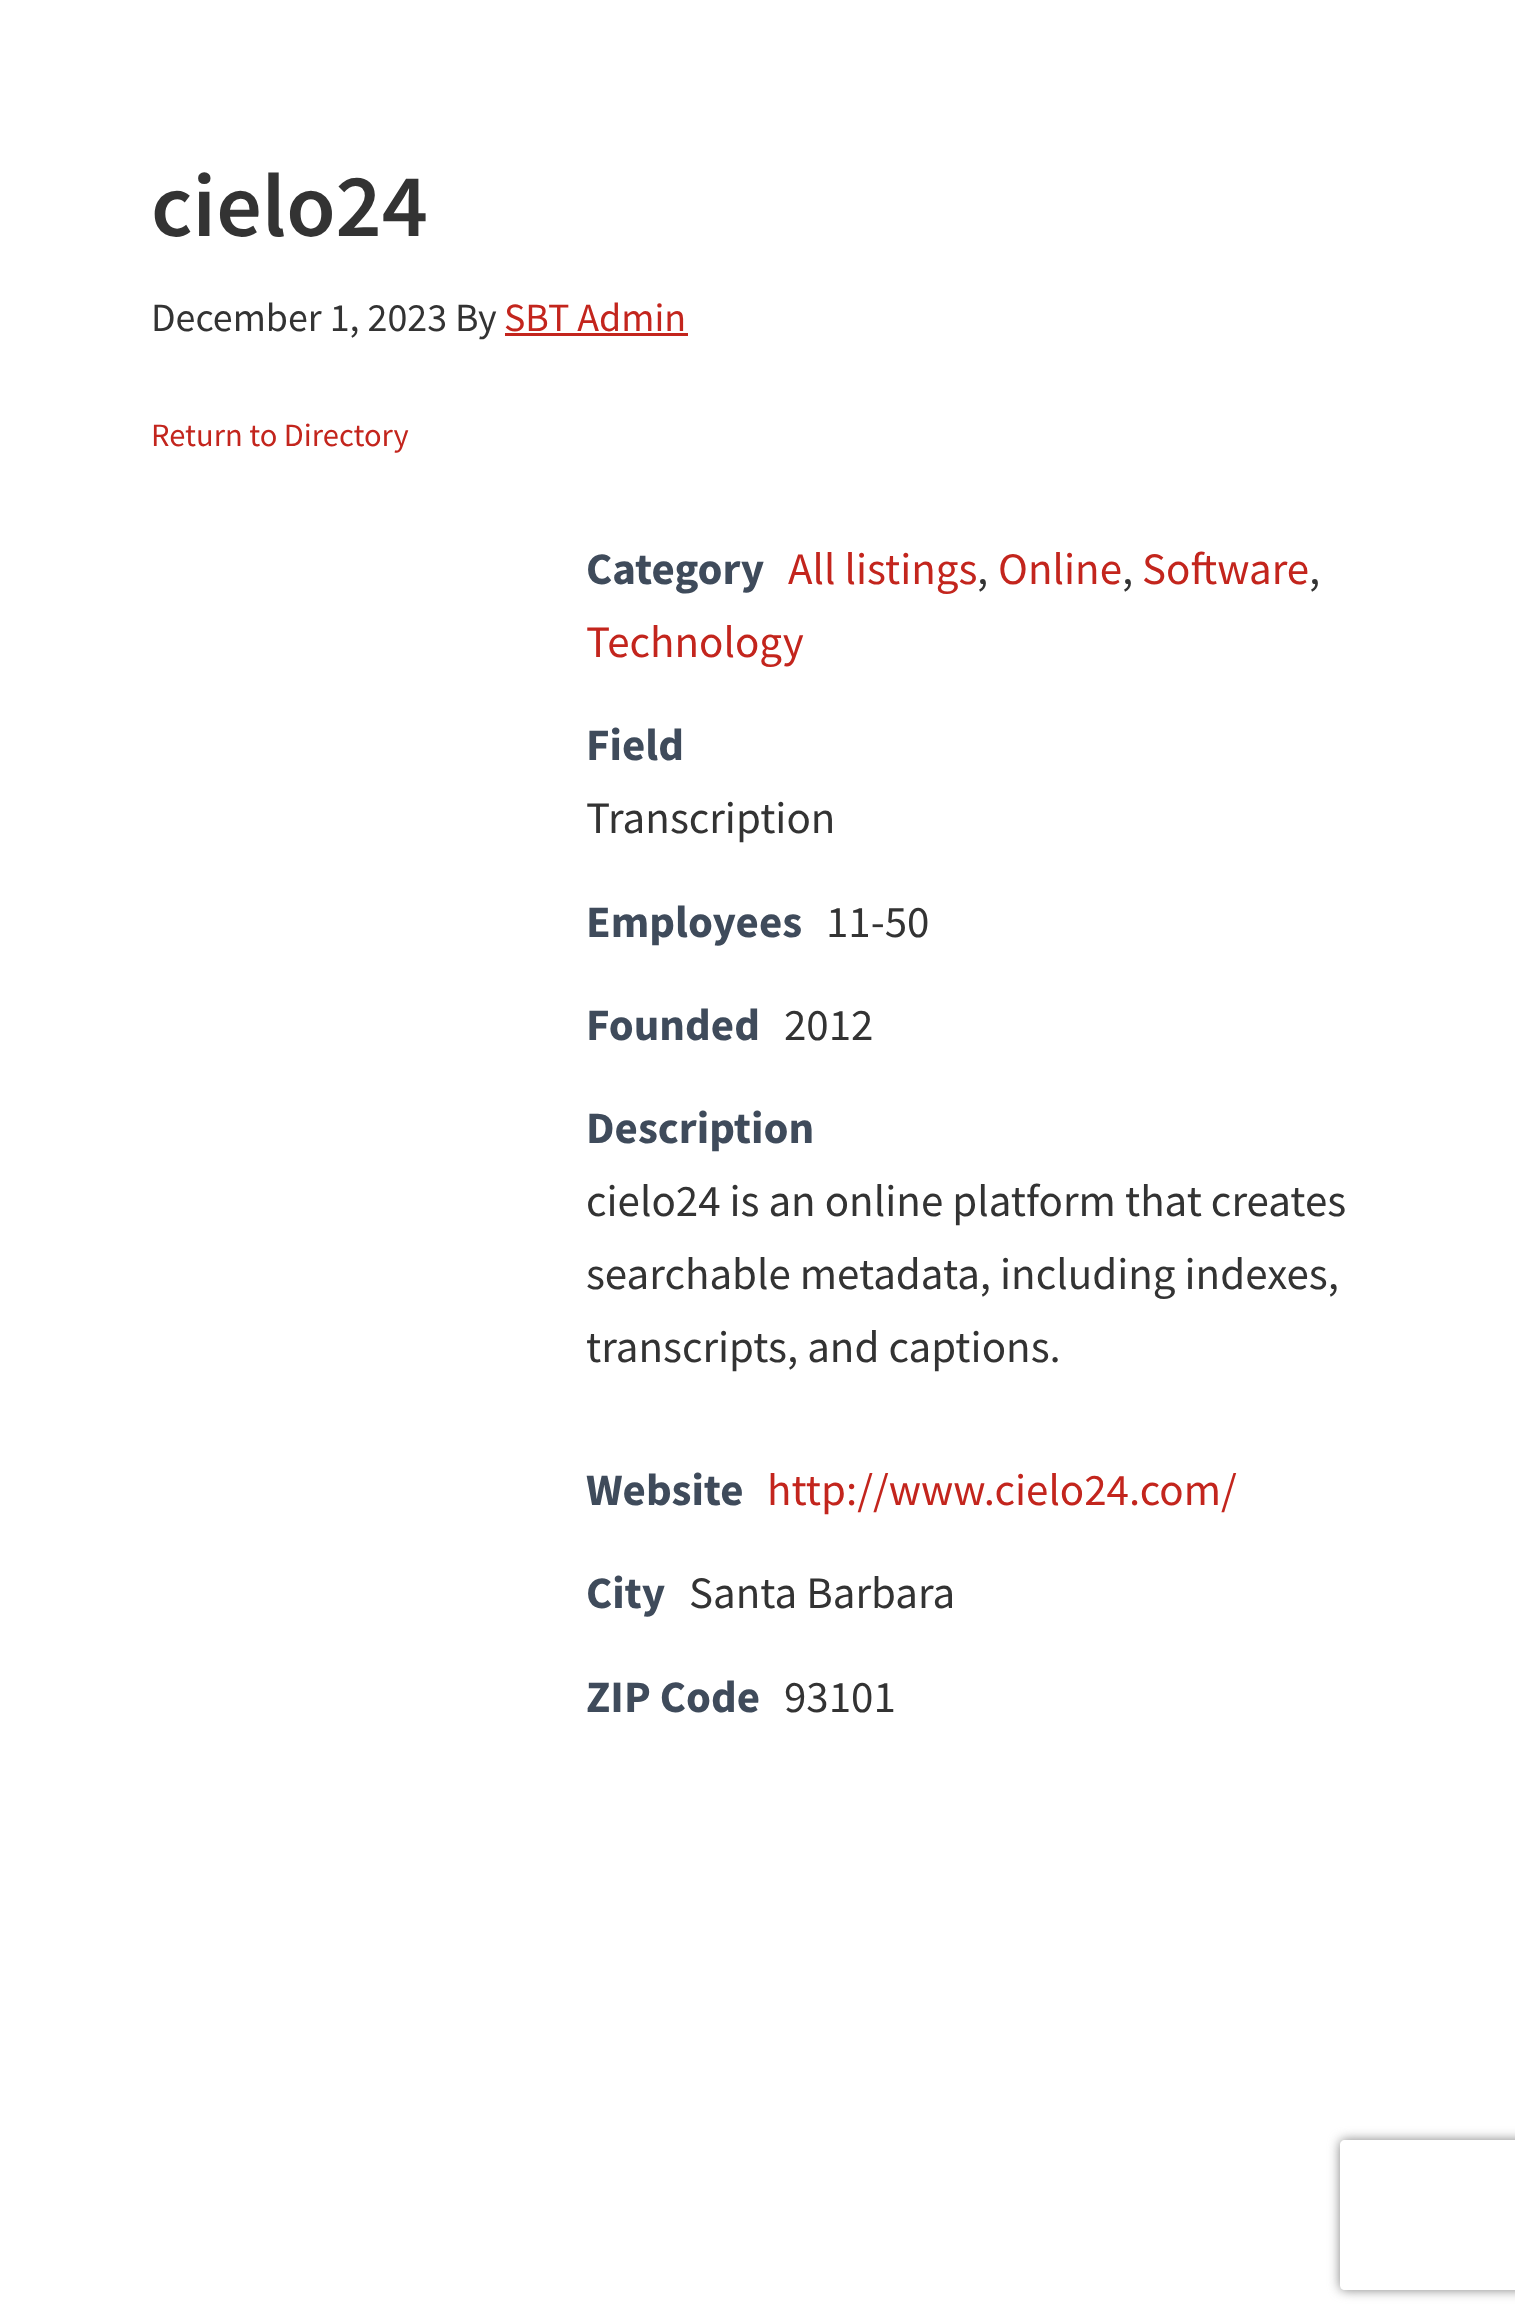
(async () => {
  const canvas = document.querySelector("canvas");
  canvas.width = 1515;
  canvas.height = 2324;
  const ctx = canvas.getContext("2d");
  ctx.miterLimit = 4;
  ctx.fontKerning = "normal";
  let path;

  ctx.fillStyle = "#ffffff";
  ctx.fillRect(0, 0, 1515, 2324);
  ctx.fillStyle = "#c3251d";
  ctx.fillRect(505, 333, 183, 3);
  ctx.save();
  path = new Path2D("M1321 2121H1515V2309H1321ZM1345 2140H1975C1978 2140 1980 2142 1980 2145V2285C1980 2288 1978 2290 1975 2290H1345C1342 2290 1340 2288 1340 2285V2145C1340 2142 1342 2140 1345 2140Z");
  ctx.clip(path, "evenodd");
  ctx.fillStyle = "#808080";
  ctx.filter = "blur(6px)";
  ctx.beginPath();
  ctx.roundRect(1340, 2140, 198, 150, 5);
  ctx.fill();
  ctx.filter = "none";
  ctx.restore();
  ctx.font = "600 90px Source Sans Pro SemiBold";
  ctx.fillStyle = "#333333";
  ctx.fillText("cielo24", 151, 236);
  ctx.font = "40px Source Sans Pro";
  ctx.fillText("December 1, 2023 By", 151, 331);
  ctx.fillStyle = "#c3251d";
  ctx.fillText("SBT Admin", 504, 331);
  ctx.font = "32.5px Source Sans Pro";
  ctx.fillText("Return to Directory", 151, 446);
  ctx.font = "bold 45px Source Sans Pro";
  ctx.fillStyle = "#3f4b5b";
  ctx.fillText("Category", 586, 584);
  ctx.font = "45px Source Sans Pro";
  ctx.fillStyle = "#c3251d";
  ctx.fillText("All listings", 788, 584);
  ctx.fillStyle = "#333333";
  ctx.fillText(",", 977, 584);
  ctx.fillStyle = "#c3251d";
  ctx.fillText("Online", 998, 584);
  ctx.fillStyle = "#333333";
  ctx.fillText(",", 1122, 584);
  ctx.fillStyle = "#c3251d";
  ctx.fillText("Software", 1142, 584);
  ctx.fillStyle = "#333333";
  ctx.fillText(",", 1309, 584);
  ctx.fillStyle = "#c3251d";
  ctx.fillText("Technology", 586, 657);
  ctx.font = "bold 45px Source Sans Pro";
  ctx.fillStyle = "#3f4b5b";
  ctx.fillText("Field", 586, 760);
  ctx.font = "45px Source Sans Pro";
  ctx.fillStyle = "#333333";
  ctx.fillText("Transcription", 586, 833);
  ctx.font = "bold 45px Source Sans Pro";
  ctx.fillStyle = "#3f4b5b";
  ctx.fillText("Employees", 586, 937);
  ctx.font = "45px Source Sans Pro";
  ctx.fillStyle = "#333333";
  ctx.fillText("11-50", 826, 937);
  ctx.font = "bold 45px Source Sans Pro";
  ctx.fillStyle = "#3f4b5b";
  ctx.fillText("Founded", 586, 1040);
  ctx.font = "45px Source Sans Pro";
  ctx.fillStyle = "#333333";
  ctx.fillText("2012", 784, 1040);
  ctx.font = "bold 45px Source Sans Pro";
  ctx.fillStyle = "#3f4b5b";
  ctx.fillText("Description", 586, 1143);
  ctx.font = "45px Source Sans Pro";
  ctx.fillStyle = "#333333";
  for (const [text, x, y] of [
    ["cielo24 is an online platform that creates", 586, 1216],
    ["searchable metadata, including indexes,", 586, 1289],
    ["transcripts, and captions.", 586, 1362],
  ]) {
    ctx.fillText(text, x, y);
  }
  ctx.font = "bold 45px Source Sans Pro";
  ctx.fillStyle = "#3f4b5b";
  ctx.fillText("Website", 586, 1505);
  ctx.font = "45px Source Sans Pro";
  ctx.fillStyle = "#c3251d";
  ctx.fillText("http://www.cielo24.com/", 767, 1505);
  ctx.font = "bold 45px Source Sans Pro";
  ctx.fillStyle = "#3f4b5b";
  ctx.fillText("City", 586, 1608);
  ctx.font = "45px Source Sans Pro";
  ctx.fillStyle = "#333333";
  ctx.fillText("Santa Barbara", 689, 1608);
  ctx.font = "bold 45px Source Sans Pro";
  ctx.fillStyle = "#3f4b5b";
  ctx.fillText("ZIP Code", 586, 1712);
  ctx.font = "45px Source Sans Pro";
  ctx.fillStyle = "#333333";
  ctx.fillText("93101", 784, 1712);
})();
